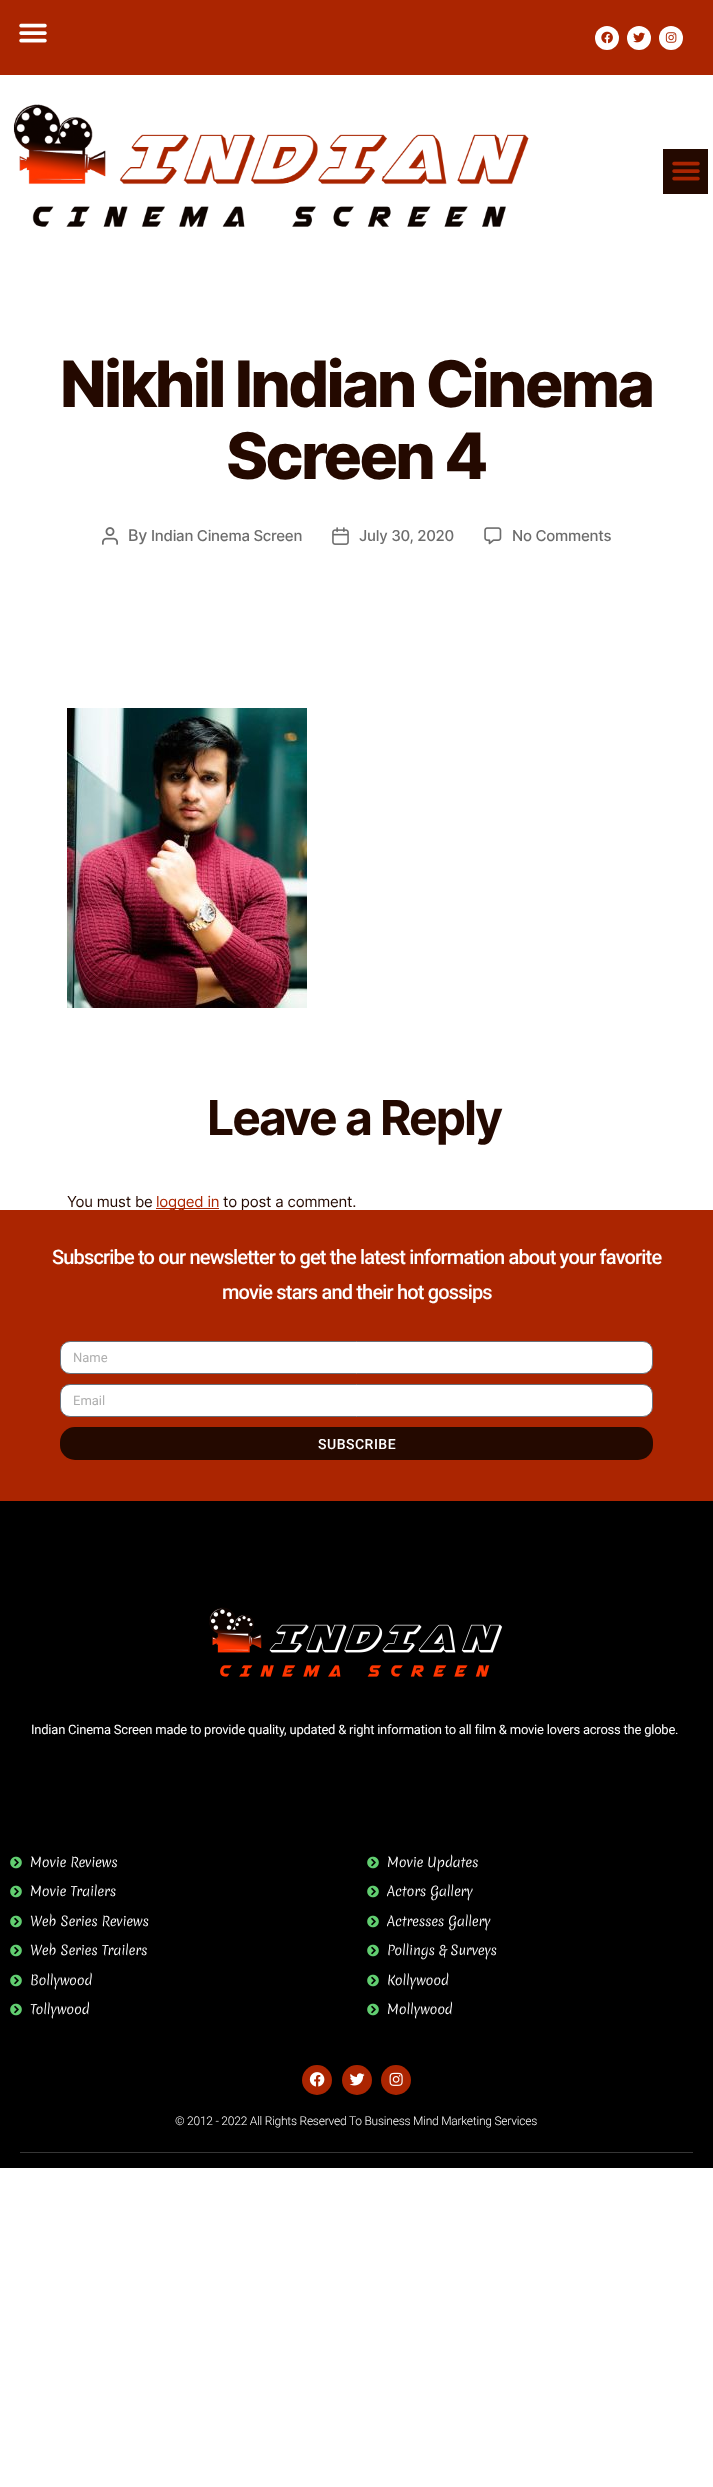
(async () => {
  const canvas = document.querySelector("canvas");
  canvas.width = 713;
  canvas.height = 2487;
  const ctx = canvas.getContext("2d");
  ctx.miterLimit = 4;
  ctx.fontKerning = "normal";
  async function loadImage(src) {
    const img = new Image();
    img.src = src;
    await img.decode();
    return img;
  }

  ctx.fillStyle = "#ffffff";
  ctx.fillRect(0, 0, 713, 2487);
  ctx.fillStyle = "#ab2501";
  ctx.fillRect(0, 0, 713, 75);
  ctx.drawImage(await loadImage("img/1.png"), 19, 23, 28, 20);
  ctx.fillStyle = "#ffffff";
  ctx.beginPath();
  ctx.arc(607, 38, 12, 0, Math.PI * 2);
  ctx.fill();
  ctx.drawImage(await loadImage("img/2.png"), 601, 31, 12, 13);
  ctx.beginPath();
  ctx.arc(639, 38, 12, 0, Math.PI * 2);
  ctx.fill();
  ctx.drawImage(await loadImage("img/3.png"), 633, 32, 12, 11);
  ctx.beginPath();
  ctx.arc(671, 38, 12, 0, Math.PI * 2);
  ctx.fill();
  ctx.drawImage(await loadImage("img/4.png"), 665, 32, 12, 11);
  ctx.drawImage(await loadImage("img/5.png"), 13, 104, 516, 123);
  ctx.fillStyle = "#240900";
  ctx.fillRect(663, 149, 45, 45);
  ctx.drawImage(await loadImage("img/6.png"), 672, 161, 28, 20);
  ctx.drawImage(await loadImage("img/7.png"), 102, 527, 16, 18);
  ctx.drawImage(await loadImage("img/8.png"), 332, 527, 17, 18);
  ctx.drawImage(await loadImage("img/9.png"), 484, 527, 18, 18);
  ctx.drawImage(await loadImage("img/10.png"), 67, 708, 240, 300);
  ctx.fillStyle = "#ab2501";
  ctx.fillRect(156, 1208, 63, 1);
  ctx.fillRect(0, 1210, 713, 291);
  ctx.fillStyle = "#ffffff";
  ctx.beginPath();
  ctx.roundRect(60.5, 1341.5, 592, 32, 9.5);
  ctx.fill();
  ctx.strokeStyle = "#69727d";
  ctx.stroke();
  ctx.beginPath();
  ctx.roundRect(60.5, 1384.5, 592, 32, 9.5);
  ctx.fill();
  ctx.stroke();
  ctx.fillStyle = "#240900";
  ctx.beginPath();
  ctx.roundRect(60, 1427, 593, 33, 15);
  ctx.fill();
  ctx.fillStyle = "#000000";
  ctx.fillRect(0, 1501, 713, 667);
  ctx.drawImage(await loadImage("img/11.png"), 209, 1607, 294, 70);
  ctx.drawImage(await loadImage("img/12.png"), 10, 1856, 12, 13);
  ctx.drawImage(await loadImage("img/12.png"), 10, 1885, 12, 13);
  ctx.drawImage(await loadImage("img/12.png"), 10, 1915, 12, 13);
  ctx.drawImage(await loadImage("img/12.png"), 10, 1944, 12, 13);
  ctx.drawImage(await loadImage("img/12.png"), 10, 1974, 12, 13);
  ctx.drawImage(await loadImage("img/12.png"), 10, 2003, 12, 13);
  ctx.drawImage(await loadImage("img/12.png"), 367, 1856, 12, 13);
  ctx.drawImage(await loadImage("img/12.png"), 367, 1885, 12, 13);
  ctx.drawImage(await loadImage("img/12.png"), 367, 1915, 12, 13);
  ctx.drawImage(await loadImage("img/12.png"), 367, 1944, 12, 13);
  ctx.drawImage(await loadImage("img/12.png"), 367, 1974, 12, 13);
  ctx.drawImage(await loadImage("img/12.png"), 367, 2003, 12, 13);
  ctx.fillStyle = "#ab2501";
  ctx.beginPath();
  ctx.arc(317, 2080, 15, 0, Math.PI * 2);
  ctx.fill();
  ctx.drawImage(await loadImage("img/13.png"), 309, 2072, 16, 15);
  ctx.beginPath();
  ctx.arc(357, 2080, 15, 0, Math.PI * 2);
  ctx.fill();
  ctx.drawImage(await loadImage("img/14.png"), 349, 2073, 16, 13);
  ctx.beginPath();
  ctx.arc(396, 2080, 15, 0, Math.PI * 2);
  ctx.fill();
  ctx.drawImage(await loadImage("img/15.png"), 389, 2072, 14, 14);
  ctx.fillStyle = "#363636";
  ctx.fillRect(20, 2152, 673, 1);
  ctx.letterSpacing = "-2.7px";
  ctx.font = "800 64px Inter";
  ctx.fillStyle = "#240900";
  ctx.fillText("Nikhil Indian Cinema", 60, 407);
  ctx.fillText("Screen 4", 226, 479);
  ctx.letterSpacing = "-0.25px";
  ctx.font = "500 16px Inter";
  ctx.fillStyle = "#6d6d6d";
  ctx.fillText("By", 128, 541);
  ctx.font = "500 15px Inter";
  for (const [text, x, y] of [
    ["Indian Cinema Screen", 151, 541],
    ["July 30, 2020", 359, 541],
    ["No Comments", 512, 541],
  ]) {
    ctx.fillText(text, x, y);
  }
  ctx.letterSpacing = "-2px";
  ctx.font = "bold 48px Inter";
  ctx.fillStyle = "#240900";
  ctx.fillText("Leave a Reply", 207, 1135);
  ctx.letterSpacing = "-0.23px";
  ctx.font = "15px Inter";
  ctx.fillText("You must be", 67, 1207);
  ctx.fillStyle = "#ab2501";
  ctx.fillText("logged in", 156, 1207);
  ctx.fillStyle = "#240900";
  ctx.fillText("to post a comment.", 223, 1207);
  ctx.letterSpacing = "-0.83px";
  ctx.font = "500 20px Roboto";
  ctx.fillStyle = "#ffffff";
  ctx.fillText("Subscribe to our newsletter to get the latest information about your favorite", 52, 1264);
  ctx.fillText("movie stars and their hot gossips", 222, 1299);
  ctx.letterSpacing = "0px";
  ctx.font = "13px Roboto";
  ctx.fillStyle = "#afafaf";
  ctx.fillText("Name", 73, 1362);
  ctx.fillText("Email", 73, 1405);
  ctx.letterSpacing = "0.5px";
  ctx.font = "500 14px Roboto";
  ctx.fillStyle = "#ffffff";
  ctx.fillText("SUBSCRIBE", 318, 1449);
  ctx.letterSpacing = "-0.23px";
  ctx.font = "13px Roboto";
  ctx.fillText("Indian Cinema Screen made to provide quality, updated & right information to all film & movie lovers across the globe.", 31, 1734);
  ctx.font = "300 13px Merienda";
  for (const [text, x, y] of [
    ["Movie Reviews", 30, 1867],
    ["Movie Trailers", 30, 1896],
    ["Web Series Reviews", 30, 1926],
    ["Web Series Trailers", 30, 1955],
    ["Bollywood", 30, 1985],
    ["Tollywood", 30, 2014],
    ["Movie Updates", 387, 1867],
    ["Actors Gallery", 387, 1896],
    ["Actresses Gallery", 387, 1926],
    ["Pollings & Surveys", 387, 1955],
    ["Kollywood", 387, 1985],
    ["Mollywood", 387, 2014],
  ]) {
    ctx.fillText(text, x, y);
  }
  ctx.font = "300 12px Roboto";
  ctx.fillText("© 2012 - 2022 All Rights Reserved To Business Mind Marketing Services", 175, 2125);
})();
